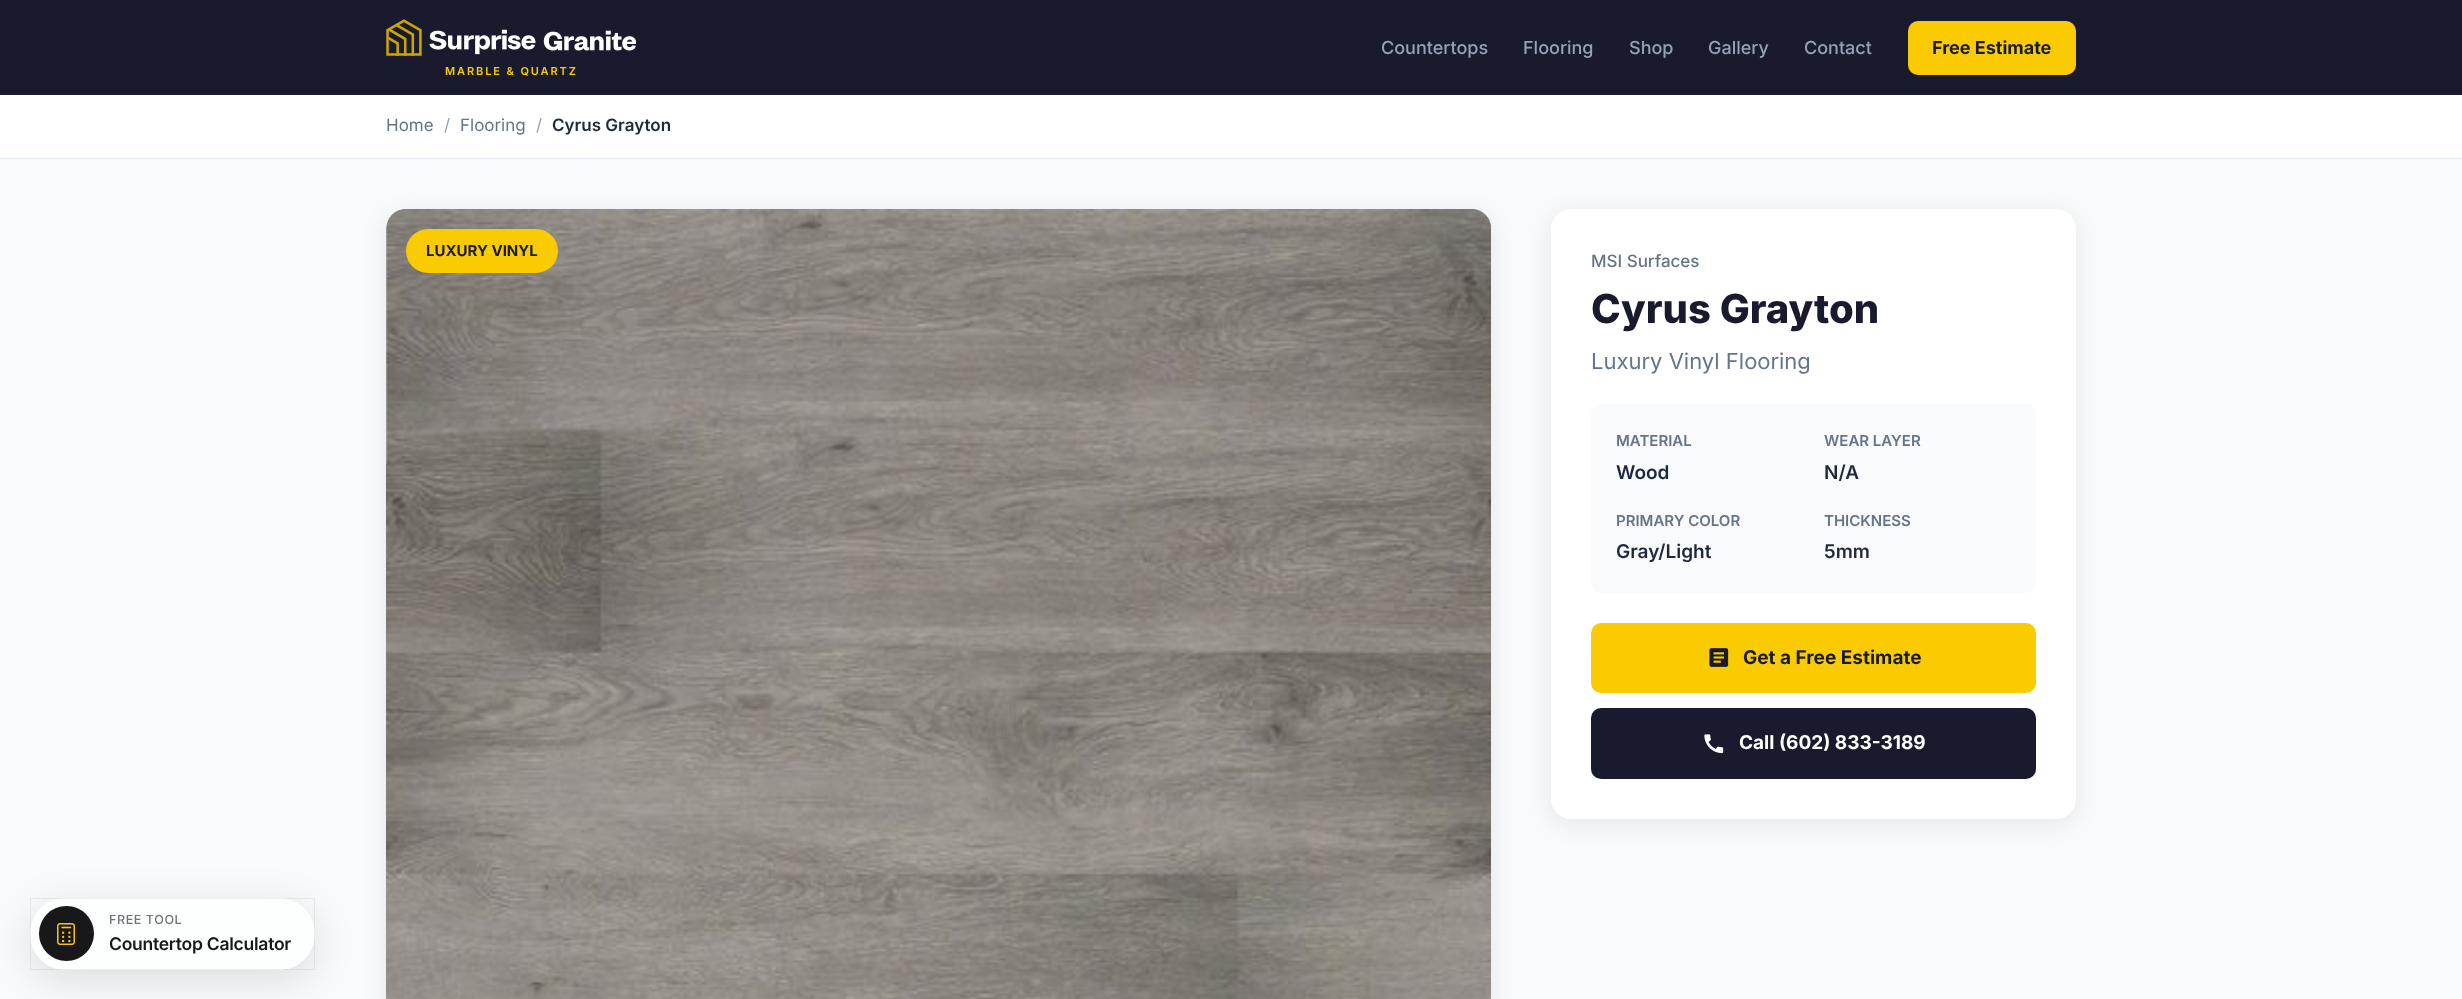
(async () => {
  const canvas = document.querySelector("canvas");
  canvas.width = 2462;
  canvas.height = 999;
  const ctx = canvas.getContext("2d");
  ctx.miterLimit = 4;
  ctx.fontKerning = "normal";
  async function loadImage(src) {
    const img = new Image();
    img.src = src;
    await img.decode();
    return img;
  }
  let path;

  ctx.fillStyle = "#f8fafc";
  ctx.fillRect(0, 0, 2462, 999);
  ctx.fillStyle = "#1a1a2e";
  ctx.fillRect(0, 0, 2462, 95);
  ctx.fillStyle = "#f9cb00";
  ctx.beginPath();
  ctx.roundRect(1908, 21, 168, 54, 10);
  ctx.fill();
  ctx.drawImage(await loadImage("img/1.png"), 386, 19, 250, 37);
  ctx.fillStyle = "#ffffff";
  ctx.fillRect(0, 95, 2462, 63);
  ctx.fillStyle = "#e2e8f0";
  ctx.fillRect(0, 158, 2462, 1);
  ctx.fillStyle = "rgba(0, 0, 0, 0.08)";
  ctx.filter = "blur(12.5px)";
  ctx.beginPath();
  ctx.roundRect(386, 214, 1105, 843, 20);
  ctx.fill();
  ctx.filter = "none";
  ctx.fillStyle = "#ffffff";
  ctx.beginPath();
  ctx.roundRect(386, 209, 1105, 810, 20);
  ctx.fill();
  ctx.drawImage(await loadImage("img/2.png"), 386, 209, 1105, 790);
  ctx.fillStyle = "#f9cb00";
  ctx.beginPath();
  ctx.roundRect(406, 229, 152, 44, 22);
  ctx.fill();
  ctx.fillStyle = "rgba(0, 0, 0, 0.08)";
  ctx.filter = "blur(12.5px)";
  ctx.beginPath();
  ctx.roundRect(1551, 214, 525, 610, 20);
  ctx.fill();
  ctx.filter = "none";
  ctx.fillStyle = "#ffffff";
  ctx.beginPath();
  ctx.roundRect(1551, 209, 525, 610, 20);
  ctx.fill();
  ctx.fillStyle = "#f8fafc";
  ctx.beginPath();
  ctx.roundRect(1591, 404, 445, 189, 10);
  ctx.fill();
  ctx.fillStyle = "#f9cb00";
  ctx.beginPath();
  ctx.roundRect(1591, 623, 445, 70, 10);
  ctx.fill();
  ctx.drawImage(await loadImage("img/3.png"), 1709, 648, 20, 19);
  ctx.fillStyle = "#1a1a2e";
  ctx.beginPath();
  ctx.roundRect(1591, 708, 445, 71, 10);
  ctx.fill();
  ctx.drawImage(await loadImage("img/4.png"), 1704, 734, 20, 20);
  ctx.save();
  path = new Path2D("M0 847H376V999H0ZM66 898H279C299 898 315 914 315 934C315 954 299 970 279 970H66C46 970 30 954 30 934C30 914 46 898 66 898Z");
  ctx.clip(path, "evenodd");
  ctx.fillStyle = "rgba(0, 0, 0, 0.12)";
  ctx.filter = "blur(20px)";
  ctx.beginPath();
  ctx.roundRect(30, 908, 285, 72, 36);
  ctx.fill();
  ctx.filter = "none";
  ctx.restore();
  ctx.fillStyle = "rgba(255, 255, 255, 0.72)";
  ctx.beginPath();
  ctx.roundRect(30, 898, 285, 72, 36);
  ctx.fill();
  ctx.strokeStyle = "rgba(0, 0, 0, 0.06)";
  ctx.strokeRect(30.5, 898.5, 284, 71);
  ctx.fillStyle = "#18181b";
  ctx.beginPath();
  ctx.arc(66.5, 933.5, 27.5, 0, Math.PI * 2);
  ctx.fill();
  ctx.drawImage(await loadImage("img/5.png"), 57, 923, 18, 22);
  ctx.font = "500 18px Inter";
  ctx.fillStyle = "#94a3b8";
  for (const [text, x, y] of [
    ["Countertops", 1381, 54],
    ["Flooring", 1523, 54],
    ["Shop", 1629, 54],
    ["Gallery", 1708, 54],
    ["Contact", 1804, 54],
  ]) {
    ctx.fillText(text, x, y);
  }
  ctx.font = "bold 18px Inter";
  ctx.fillStyle = "#1a1a2e";
  ctx.fillText("Free Estimate", 1932, 54);
  ctx.letterSpacing = "1.9px";
  ctx.font = "600 11px Inter";
  ctx.fillStyle = "#f9cb00";
  ctx.fillText("MARBLE & QUARTZ", 445, 75);
  ctx.letterSpacing = "0px";
  ctx.font = "17px Inter";
  ctx.fillStyle = "#64748b";
  ctx.fillText("Home", 386, 131);
  ctx.fillStyle = "#94a3b8";
  ctx.fillText("/", 444, 131);
  ctx.fillStyle = "#64748b";
  ctx.fillText("Flooring", 460, 131);
  ctx.fillStyle = "#94a3b8";
  ctx.fillText("/", 536, 131);
  ctx.font = "600 17px Inter";
  ctx.fillStyle = "#1e293b";
  ctx.fillText("Cyrus Grayton", 552, 131);
  ctx.font = "bold 15px Inter";
  ctx.fillStyle = "#1a1a2e";
  ctx.fillText("LUXURY VINYL", 426, 256);
  ctx.font = "500 17px Inter";
  ctx.fillStyle = "#64748b";
  ctx.fillText("MSI Surfaces", 1591, 267);
  ctx.font = "800 40px Inter";
  ctx.fillStyle = "#1a1a2e";
  ctx.fillText("Cyrus Grayton", 1591, 323);
  ctx.font = "22px Inter";
  ctx.fillStyle = "#64748b";
  ctx.fillText("Luxury Vinyl Flooring", 1591, 369);
  ctx.font = "600 15px Inter";
  ctx.fillText("MATERIAL", 1616, 446);
  ctx.font = "600 19px Inter";
  ctx.fillStyle = "#1e293b";
  ctx.fillText("Wood", 1616, 479);
  ctx.font = "600 15px Inter";
  ctx.fillStyle = "#64748b";
  ctx.fillText("WEAR LAYER", 1824, 446);
  ctx.font = "600 19px Inter";
  ctx.fillStyle = "#1e293b";
  ctx.fillText("N/A", 1824, 479);
  ctx.font = "600 15px Inter";
  ctx.fillStyle = "#64748b";
  ctx.fillText("PRIMARY COLOR", 1616, 526);
  ctx.font = "600 19px Inter";
  ctx.fillStyle = "#1e293b";
  ctx.fillText("Gray/Light", 1616, 558);
  ctx.font = "600 15px Inter";
  ctx.fillStyle = "#64748b";
  ctx.fillText("THICKNESS", 1824, 526);
  ctx.font = "600 19px Inter";
  ctx.fillStyle = "#1e293b";
  ctx.fillText("5mm", 1824, 558);
  ctx.font = "bold 19px Inter";
  ctx.fillStyle = "#1a1a2e";
  ctx.fillText("Get a Free Estimate", 1743, 664);
  ctx.fillStyle = "#ffffff";
  ctx.fillText("Call (602) 833-3189", 1739, 749);
  ctx.letterSpacing = "0.6px";
  ctx.font = "500 12.5px Inter";
  ctx.fillStyle = "#71717a";
  ctx.fillText("FREE TOOL", 109, 924);
  ctx.letterSpacing = "-0.25px";
  ctx.font = "600 17.5px Inter";
  ctx.fillStyle = "#18181b";
  ctx.fillText("Countertop Calculator", 109, 950);
})();
